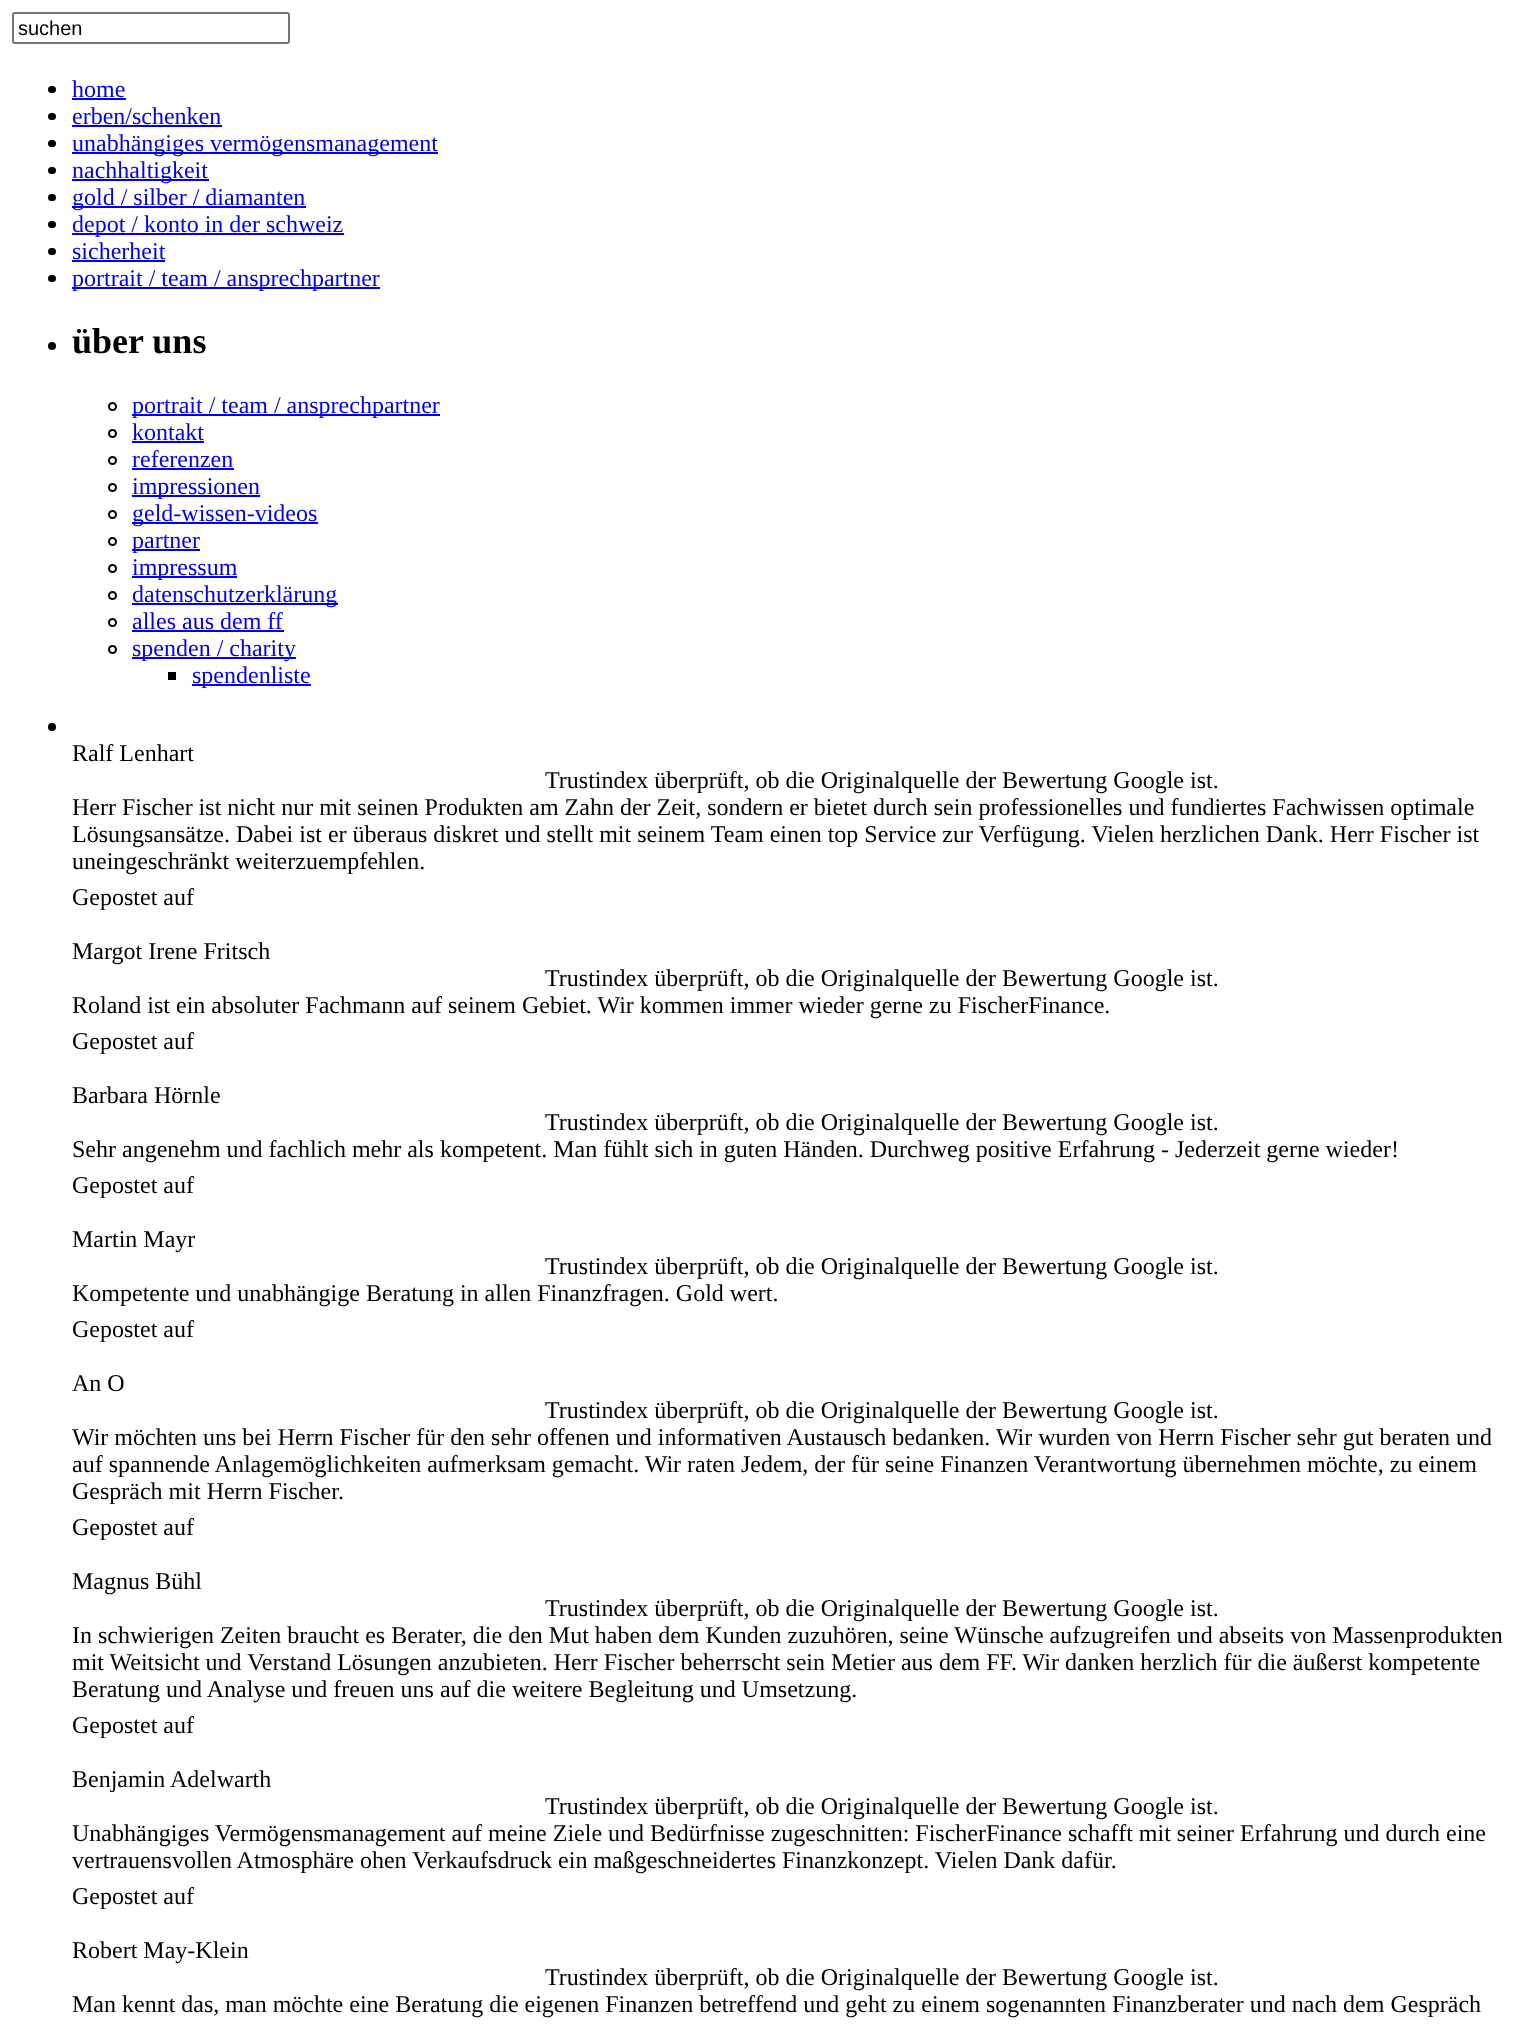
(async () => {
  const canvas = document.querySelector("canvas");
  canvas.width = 1515;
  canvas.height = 2024;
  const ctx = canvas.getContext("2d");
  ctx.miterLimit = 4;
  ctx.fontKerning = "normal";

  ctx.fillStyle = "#ffffff";
  ctx.fillRect(0, 0, 1515, 2024);
  ctx.beginPath();
  ctx.roundRect(13, 13, 276, 30, 2);
  ctx.strokeStyle = "#767676";
  ctx.lineWidth = 2;
  ctx.stroke();
  ctx.fillStyle = "#000000";
  ctx.beginPath();
  ctx.roundRect(48, 86, 8, 7, 3.5);
  ctx.fill();
  ctx.fillStyle = "#0000ee";
  ctx.fillRect(72, 98, 54, 2);
  ctx.fillStyle = "#000000";
  ctx.beginPath();
  ctx.roundRect(48, 113, 8, 7, 3.5);
  ctx.fill();
  ctx.fillStyle = "#0000ee";
  ctx.fillRect(72, 125, 150, 2);
  ctx.fillStyle = "#000000";
  ctx.beginPath();
  ctx.roundRect(48, 140, 8, 7, 3.5);
  ctx.fill();
  ctx.fillStyle = "#0000ee";
  ctx.fillRect(72, 152, 366, 2);
  ctx.fillStyle = "#000000";
  ctx.beginPath();
  ctx.roundRect(48, 167, 8, 7, 3.5);
  ctx.fill();
  ctx.fillStyle = "#0000ee";
  ctx.fillRect(72, 179, 137, 2);
  ctx.fillStyle = "#000000";
  ctx.beginPath();
  ctx.roundRect(48, 194, 8, 7, 3.5);
  ctx.fill();
  ctx.fillStyle = "#0000ee";
  ctx.fillRect(72, 206, 234, 2);
  ctx.fillStyle = "#000000";
  ctx.beginPath();
  ctx.roundRect(48, 221, 8, 7, 3.5);
  ctx.fill();
  ctx.fillStyle = "#0000ee";
  ctx.fillRect(72, 233, 272, 2);
  ctx.fillStyle = "#000000";
  ctx.beginPath();
  ctx.roundRect(48, 248, 8, 7, 3.5);
  ctx.fill();
  ctx.fillStyle = "#0000ee";
  ctx.fillRect(72, 260, 93, 2);
  ctx.fillStyle = "#000000";
  ctx.beginPath();
  ctx.roundRect(48, 275, 8, 7, 3.5);
  ctx.fill();
  ctx.fillStyle = "#0000ee";
  ctx.fillRect(72, 287, 308, 2);
  ctx.fillStyle = "#000000";
  ctx.beginPath();
  ctx.arc(52, 346, 4, 0, Math.PI * 2);
  ctx.fill();
  ctx.beginPath();
  ctx.arc(112.5, 406.5, 3.5, 0, Math.PI * 2);
  ctx.strokeStyle = "#000000";
  ctx.stroke();
  ctx.fillStyle = "#0000ee";
  ctx.fillRect(132, 414, 308, 2);
  ctx.beginPath();
  ctx.arc(112.5, 433.5, 3.5, 0, Math.PI * 2);
  ctx.stroke();
  ctx.fillRect(132, 441, 72, 2);
  ctx.beginPath();
  ctx.arc(112.5, 460.5, 3.5, 0, Math.PI * 2);
  ctx.stroke();
  ctx.fillRect(132, 468, 102, 2);
  ctx.beginPath();
  ctx.arc(112.5, 487.5, 3.5, 0, Math.PI * 2);
  ctx.stroke();
  ctx.fillRect(132, 495, 128, 2);
  ctx.beginPath();
  ctx.arc(112.5, 514.5, 3.5, 0, Math.PI * 2);
  ctx.stroke();
  ctx.fillRect(132, 522, 186, 2);
  ctx.beginPath();
  ctx.arc(112.5, 541.5, 3.5, 0, Math.PI * 2);
  ctx.stroke();
  ctx.fillRect(132, 549, 68, 2);
  ctx.beginPath();
  ctx.arc(112.5, 568.5, 3.5, 0, Math.PI * 2);
  ctx.stroke();
  ctx.fillRect(132, 576, 105, 2);
  ctx.beginPath();
  ctx.arc(112.5, 595.5, 3.5, 0, Math.PI * 2);
  ctx.stroke();
  ctx.fillRect(132, 603, 206, 2);
  ctx.beginPath();
  ctx.arc(112.5, 622.5, 3.5, 0, Math.PI * 2);
  ctx.stroke();
  ctx.fillRect(132, 630, 152, 2);
  ctx.beginPath();
  ctx.arc(112.5, 649.5, 3.5, 0, Math.PI * 2);
  ctx.stroke();
  for (const [x, y, w, h, color] of [
    [132, 657, 164, 2, "#0000ee"],
    [168, 672, 8, 8, "#000000"],
    [192, 684, 119, 2, "#0000ee"],
  ]) {
    ctx.fillStyle = color;
    ctx.fillRect(x, y, w, h);
  }
  ctx.fillStyle = "#000000";
  ctx.beginPath();
  ctx.arc(52, 727, 4, 0, Math.PI * 2);
  ctx.fill();
  ctx.font = "20px Liberation Sans";
  ctx.fillText("suchen", 18, 35);
  ctx.font = "24px Liberation Serif";
  ctx.fillStyle = "#0000ee";
  for (const [text, x, y] of [
    ["home", 72, 97],
    ["erben/schenken", 72, 124],
    ["unabhängiges vermögensmanagement", 72, 151],
    ["nachhaltigkeit", 72, 178],
    ["gold / silber / diamanten", 72, 205],
    ["depot / konto in der schweiz", 72, 232],
    ["sicherheit", 72, 259],
    ["portrait / team / ansprechpartner", 72, 286],
  ]) {
    ctx.fillText(text, x, y);
  }
  ctx.font = "bold 36px Liberation Serif";
  ctx.fillStyle = "#000000";
  ctx.fillText("über uns", 72, 353);
  ctx.font = "24px Liberation Serif";
  ctx.fillStyle = "#0000ee";
  for (const [text, x, y] of [
    ["portrait / team / ansprechpartner", 132, 413],
    ["kontakt", 132, 440],
    ["referenzen", 132, 467],
    ["impressionen", 132, 494],
    ["geld-wissen-videos", 132, 521],
    ["partner", 132, 548],
    ["impressum", 132, 575],
    ["datenschutzerklärung", 132, 602],
    ["alles aus dem ff", 132, 629],
    ["spenden / charity", 132, 656],
    ["spendenliste", 192, 683],
  ]) {
    ctx.fillText(text, x, y);
  }
  ctx.fillStyle = "#000000";
  for (const [text, x, y] of [
    ["Ralf Lenhart", 72, 761],
    ["Trustindex überprüft, ob die Originalquelle der Bewertung Google ist.", 545, 788],
    ["Herr Fischer ist nicht nur mit seinen Produkten am Zahn der Zeit, sondern er bietet durch sein professionelles und fundiertes Fachwissen optimale", 72, 815],
    ["Lösungsansätze. Dabei ist er überaus diskret und stellt mit seinem Team einen top Service zur Verfügung. Vielen herzlichen Dank. Herr Fischer ist", 72, 842],
    ["uneingeschränkt weiterzuempfehlen.", 72, 869],
    ["Gepostet auf", 72, 905],
    ["Margot Irene Fritsch", 72, 959],
    ["Trustindex überprüft, ob die Originalquelle der Bewertung Google ist.", 545, 986],
    ["Roland ist ein absoluter Fachmann auf seinem Gebiet. Wir kommen immer wieder gerne zu FischerFinance.", 72, 1013],
    ["Gepostet auf", 72, 1049],
    ["Barbara Hörnle", 72, 1103],
    ["Trustindex überprüft, ob die Originalquelle der Bewertung Google ist.", 545, 1130],
    ["Sehr angenehm und fachlich mehr als kompetent. Man fühlt sich in guten Händen. Durchweg positive Erfahrung - Jederzeit gerne wieder!", 72, 1157],
    ["Gepostet auf", 72, 1193],
    ["Martin Mayr", 72, 1247],
    ["Trustindex überprüft, ob die Originalquelle der Bewertung Google ist.", 545, 1274],
    ["Kompetente und unabhängige Beratung in allen Finanzfragen. Gold wert.", 72, 1301],
    ["Gepostet auf", 72, 1337],
    ["An O", 72, 1391],
    ["Trustindex überprüft, ob die Originalquelle der Bewertung Google ist.", 545, 1418],
    ["Wir möchten uns bei Herrn Fischer für den sehr offenen und informativen Austausch bedanken. Wir wurden von Herrn Fischer sehr gut beraten und", 72, 1445],
    ["auf spannende Anlagemöglichkeiten aufmerksam gemacht. Wir raten Jedem, der für seine Finanzen Verantwortung übernehmen möchte, zu einem", 72, 1472],
    ["Gespräch mit Herrn Fischer.", 72, 1499],
    ["Gepostet auf", 72, 1535],
    ["Magnus Bühl", 72, 1589],
    ["Trustindex überprüft, ob die Originalquelle der Bewertung Google ist.", 545, 1616],
    ["In schwierigen Zeiten braucht es Berater, die den Mut haben dem Kunden zuzuhören, seine Wünsche aufzugreifen und abseits von Massenprodukten", 72, 1643],
    ["mit Weitsicht und Verstand Lösungen anzubieten. Herr Fischer beherrscht sein Metier aus dem FF. Wir danken herzlich für die äußerst kompetente", 72, 1670],
    ["Beratung und Analyse und freuen uns auf die weitere Begleitung und Umsetzung.", 72, 1697],
    ["Gepostet auf", 72, 1733],
    ["Benjamin Adelwarth", 72, 1787],
    ["Trustindex überprüft, ob die Originalquelle der Bewertung Google ist.", 545, 1814],
    ["Unabhängiges Vermögensmanagement auf meine Ziele und Bedürfnisse zugeschnitten: FischerFinance schafft mit seiner Erfahrung und durch eine", 72, 1841],
    ["vertrauensvollen Atmosphäre ohen Verkaufsdruck ein maßgeschneidertes Finanzkonzept. Vielen Dank dafür.", 72, 1868],
    ["Gepostet auf", 72, 1904],
    ["Robert May-Klein", 72, 1958],
    ["Trustindex überprüft, ob die Originalquelle der Bewertung Google ist.", 545, 1985],
    ["Man kennt das, man möchte eine Beratung die eigenen Finanzen betreffend und geht zu einem sogenannten Finanzberater und nach dem Gespräch", 72, 2012],
  ]) {
    ctx.fillText(text, x, y);
  }
})();
